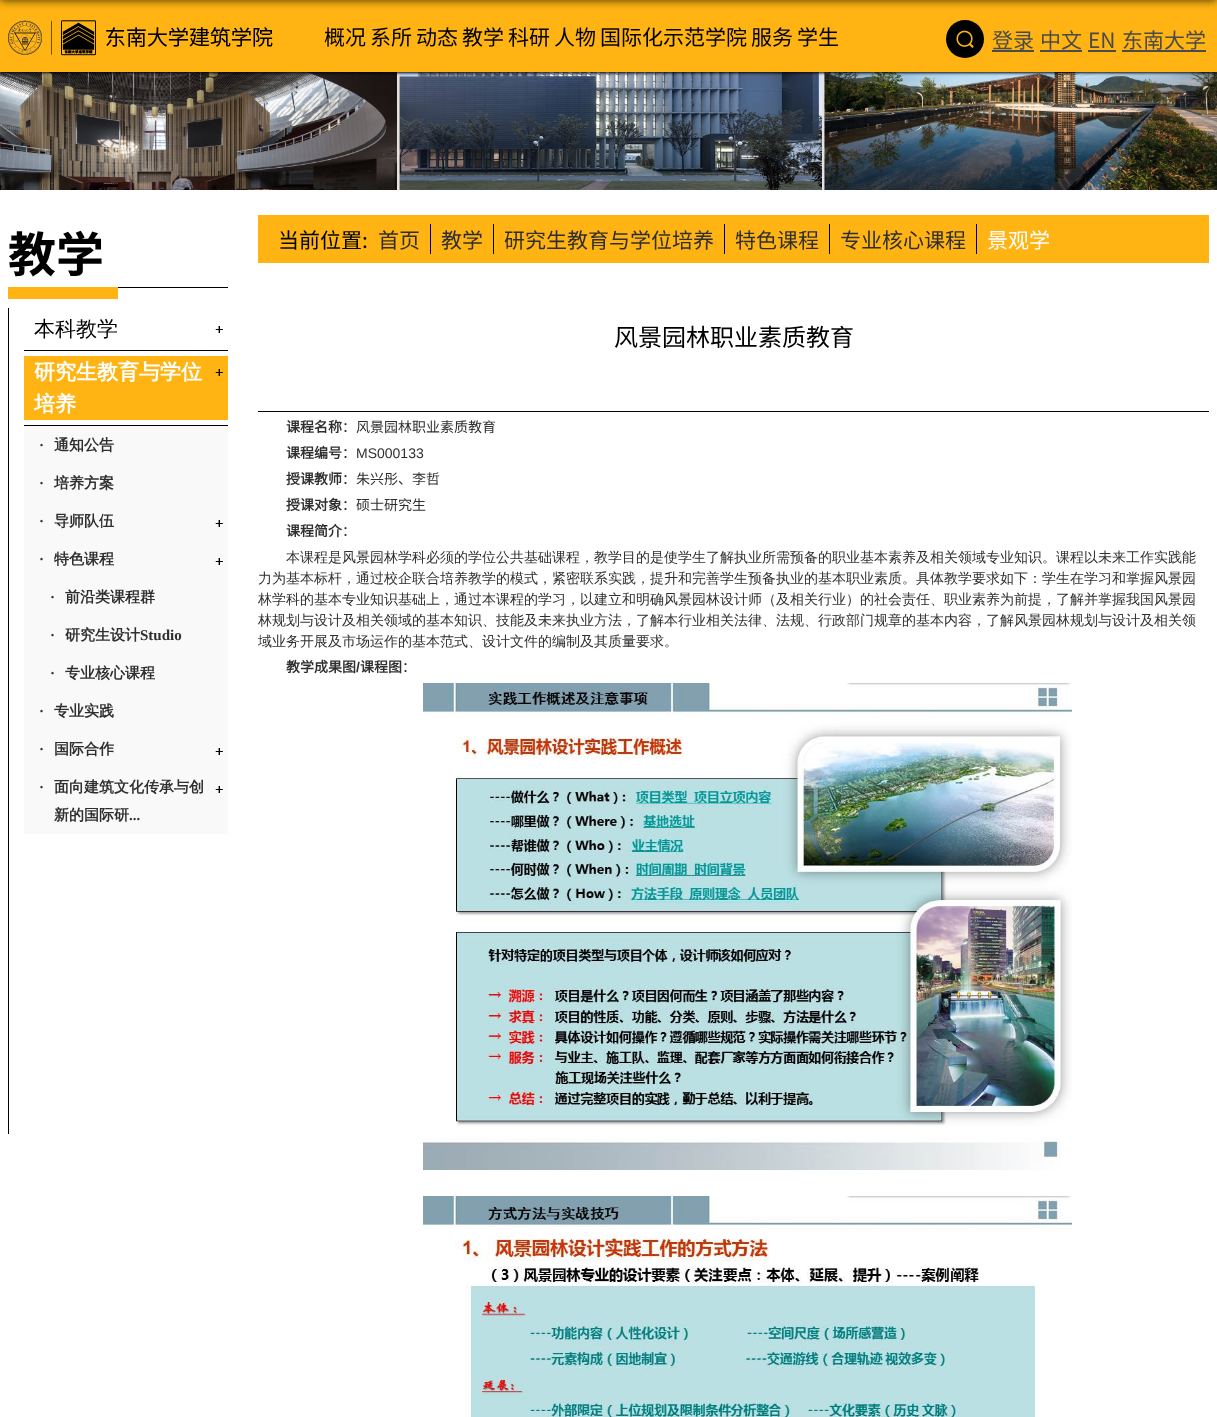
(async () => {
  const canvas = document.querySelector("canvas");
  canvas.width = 1217;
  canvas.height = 1417;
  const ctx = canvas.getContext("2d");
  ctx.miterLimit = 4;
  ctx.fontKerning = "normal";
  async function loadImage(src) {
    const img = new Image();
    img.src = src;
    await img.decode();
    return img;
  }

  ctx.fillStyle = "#ffffff";
  ctx.fillRect(0, 0, 1217, 1417);
  ctx.fillStyle = "#e7e2df";
  ctx.fillRect(397, 72, 428, 118);
  ctx.drawImage(await loadImage("img/3.png"), 0, 72, 1217, 118);
  ctx.fillStyle = "#000000";
  ctx.filter = "blur(1.5px)";
  ctx.beginPath();
  ctx.rect(1, 1, 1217, 72);
  ctx.fill();
  ctx.filter = "none";
  ctx.fillStyle = "#ffb414";
  ctx.fillRect(0, 0, 1217, 72);
  ctx.fillStyle = "rgba(0, 0, 0, 0.8)";
  ctx.filter = "blur(5px)";
  ctx.beginPath();
  ctx.rect(0, -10, 1217, 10);
  ctx.fill();
  ctx.filter = "none";
  ctx.drawImage(await loadImage("img/1.png"), 8, 20, 265, 36);
  ctx.fillStyle = "#000000";
  ctx.beginPath();
  ctx.arc(965, 39, 19, 0, Math.PI * 2);
  ctx.fill();
  ctx.drawImage(await loadImage("img/2.png"), 956, 30, 18, 18);
  for (const [x, y, w, h, color] of [
    [992, 50, 42, 2, "#4b4b4b"],
    [1040, 50, 42, 2, "#4b4b4b"],
    [1088, 50, 28, 2, "#4b4b4b"],
    [1122, 50, 84, 2, "#4b4b4b"],
    [118, 287, 110, 1, "#000000"],
    [8, 287, 110, 12, "#ffb414"],
    [8, 308, 1, 826, "#000000"],
    [24, 350, 204, 1, "#000000"],
  ]) {
    ctx.fillStyle = color;
    ctx.fillRect(x, y, w, h);
  }
  ctx.drawImage(await loadImage("img/4.png"), 215, 326, 8, 7);
  ctx.fillRect(24, 425, 204, 1);
  ctx.fillStyle = "#ffb414";
  ctx.fillRect(24, 356, 204, 64);
  ctx.drawImage(await loadImage("img/5.png"), 215, 369, 8, 7);
  ctx.fillStyle = "#f9f9f9";
  ctx.fillRect(24, 426, 204, 408);
  ctx.drawImage(await loadImage("img/6.png"), 215, 520, 8, 7);
  ctx.drawImage(await loadImage("img/6.png"), 215, 558, 8, 7);
  ctx.drawImage(await loadImage("img/6.png"), 215, 748, 8, 7);
  ctx.drawImage(await loadImage("img/6.png"), 215, 786, 8, 7);
  for (const [x, y, w, h, color] of [
    [258, 215, 951, 48, "#ffb414"],
    [430, 224, 1, 30, "#000000"],
    [493, 224, 1, 30, "#000000"],
    [724, 224, 1, 30, "#000000"],
    [829, 224, 1, 30, "#000000"],
    [976, 224, 1, 30, "#000000"],
    [258, 411, 951, 1, "#00000a"],
  ]) {
    ctx.fillStyle = color;
    ctx.fillRect(x, y, w, h);
  }
  ctx.drawImage(await loadImage("img/7.png"), 423, 683, 649, 487);
  ctx.drawImage(await loadImage("img/8.png"), 423, 1196, 649, 221);
  ctx.font = "21px Noto Sans SC";
  ctx.fillStyle = "#000000";
  for (const [text, x, y] of [
    ["概况", 324, 45],
    ["系所", 370, 45],
    ["动态", 416, 45],
    ["教学", 462, 45],
    ["科研", 508, 45],
    ["人物", 554, 45],
    ["国际化示范学院", 600, 45],
    ["服务", 751, 45],
    ["学生", 797, 45],
  ]) {
    ctx.fillText(text, x, y);
  }
  ctx.fillStyle = "#4b4b4b";
  for (const [text, x, y] of [
    ["登录", 992, 48],
    ["中文", 1040, 48],
    ["EN", 1088, 48],
    ["东南大学", 1122, 48],
  ]) {
    ctx.fillText(text, x, y);
  }
  ctx.font = "bold 48px Noto Sans SC";
  ctx.fillStyle = "#000000";
  ctx.fillText("教学", 8, 272);
  ctx.font = "500 21px WenQuanYi Zen Hei";
  ctx.fillText("本科教学", 34, 336);
  ctx.font = "bold 21px WenQuanYi Zen Hei";
  ctx.fillStyle = "#ffffff";
  ctx.fillText("研究生教育与学位", 34, 379);
  ctx.fillText("培养", 34, 411);
  ctx.font = "bold 15px Liberation Serif";
  ctx.fillStyle = "#2f2f2f";
  ctx.fillText("·", 39, 450);
  ctx.font = "bold 15px WenQuanYi Zen Hei";
  ctx.fillText("通知公告", 54, 450);
  ctx.font = "bold 15px Liberation Serif";
  ctx.fillText("·", 39, 488);
  ctx.font = "bold 15px WenQuanYi Zen Hei";
  ctx.fillText("培养方案", 54, 488);
  ctx.font = "bold 15px Liberation Serif";
  ctx.fillText("·", 39, 526);
  ctx.font = "bold 15px WenQuanYi Zen Hei";
  ctx.fillText("导师队伍", 54, 526);
  ctx.font = "bold 15px Liberation Serif";
  ctx.fillText("·", 39, 564);
  ctx.font = "bold 15px WenQuanYi Zen Hei";
  ctx.fillText("特色课程", 54, 564);
  ctx.font = "bold 15px Liberation Serif";
  ctx.fillText("·", 50, 602);
  ctx.font = "bold 15px WenQuanYi Zen Hei";
  ctx.fillText("前沿类课程群", 65, 602);
  ctx.font = "bold 15px Liberation Serif";
  ctx.fillText("·", 50, 640);
  ctx.font = "bold 15px WenQuanYi Zen Hei";
  ctx.fillText("研究生设计", 65, 640);
  ctx.font = "bold 15px Liberation Serif";
  ctx.fillText("Studio", 140, 640);
  ctx.fillText("·", 50, 678);
  ctx.font = "bold 15px WenQuanYi Zen Hei";
  ctx.fillText("专业核心课程", 65, 678);
  ctx.font = "bold 15px Liberation Serif";
  ctx.fillText("·", 39, 716);
  ctx.font = "bold 15px WenQuanYi Zen Hei";
  ctx.fillText("专业实践", 54, 716);
  ctx.font = "bold 15px Liberation Serif";
  ctx.fillText("·", 39, 754);
  ctx.font = "bold 15px WenQuanYi Zen Hei";
  ctx.fillText("国际合作", 54, 754);
  ctx.font = "bold 15px Liberation Serif";
  ctx.fillText("·", 39, 792);
  ctx.font = "bold 15px WenQuanYi Zen Hei";
  ctx.fillText("面向建筑文化传承与创", 54, 792);
  ctx.fillText("新的国际研", 54, 820);
  ctx.font = "bold 15px Liberation Serif";
  ctx.fillText("...", 129, 820);
  ctx.font = "21px Noto Sans SC";
  ctx.fillStyle = "#000000";
  ctx.fillText("当前位置:", 278, 248);
  ctx.fillStyle = "#2f2f2f";
  for (const [text, x, y] of [
    ["首页", 378, 248],
    ["教学", 441, 248],
    ["研究生教育与学位培养", 504, 248],
    ["特色课程", 735, 248],
    ["专业核心课程", 840, 248],
  ]) {
    ctx.fillText(text, x, y);
  }
  ctx.fillStyle = "#ffffff";
  ctx.fillText("景观学", 987, 248);
  ctx.font = "24px Noto Sans SC";
  ctx.fillStyle = "#000000";
  ctx.fillText("风景园林职业素质教育", 614, 346);
  ctx.font = "bold 14px Noto Sans CJK SC";
  ctx.fillStyle = "#2f2f2f";
  ctx.fillText("课程名称", 286, 432);
  ctx.font = "14px Noto Sans CJK SC";
  ctx.fillText("：风景园林职业素质教育", 342, 432);
  ctx.font = "bold 14px Noto Sans CJK SC";
  ctx.fillText("课程编号", 286, 458);
  ctx.font = "14px Noto Sans CJK SC";
  ctx.fillText("：", 342, 458);
  ctx.font = "14px Liberation Sans";
  ctx.fillText("MS000133", 356, 458);
  ctx.font = "bold 14px Noto Sans CJK SC";
  ctx.fillText("授课教师", 286, 484);
  ctx.font = "14px Noto Sans CJK SC";
  ctx.fillText("：朱兴彤、李哲", 342, 484);
  ctx.font = "bold 14px Noto Sans CJK SC";
  ctx.fillText("授课对象", 286, 510);
  ctx.font = "14px Noto Sans CJK SC";
  ctx.fillText("：硕士研究生", 342, 510);
  ctx.font = "bold 14px Noto Sans CJK SC";
  ctx.fillText("课程简介", 286, 536);
  ctx.font = "14px Noto Sans CJK SC";
  ctx.fillText("：", 342, 536);
  ctx.font = "500 14px WenQuanYi Zen Hei";
  for (const [text, x, y] of [
    ["本课程是风景园林学科必须的学位公共基础课程，教学目的是使学生了解执业所需预备的职业基本素养及相关领域专业知识。课程以未来工作实践能", 286, 562],
    ["力为基本标杆，通过校企联合培养教学的模式，紧密联系实践，提升和完善学生预备执业的基本职业素质。具体教学要求如下：学生在学习和掌握风景园", 258, 583],
    ["林学科的基本专业知识基础上，通过本课程的学习，以建立和明确风景园林设计师（及相关行业）的社会责任、职业素养为前提，了解并掌握我国风景园", 258, 604],
    ["林规划与设计及相关领域的基本知识、技能及未来执业方法，了解本行业相关法律、法规、行政部门规章的基本内容，了解风景园林规划与设计及相关领", 258, 625],
    ["域业务开展及市场运作的基本范式、设计文件的编制及其质量要求。", 258, 646],
  ]) {
    ctx.fillText(text, x, y);
  }
  ctx.font = "bold 14px Noto Sans CJK SC";
  ctx.fillText("教学成果图", 286, 672);
  ctx.font = "bold 14px Liberation Sans";
  ctx.fillText("/", 356, 672);
  ctx.font = "bold 14px Noto Sans CJK SC";
  ctx.fillText("课程图", 360, 672);
  ctx.font = "14px Noto Sans CJK SC";
  ctx.fillText("：", 402, 672);
})();
